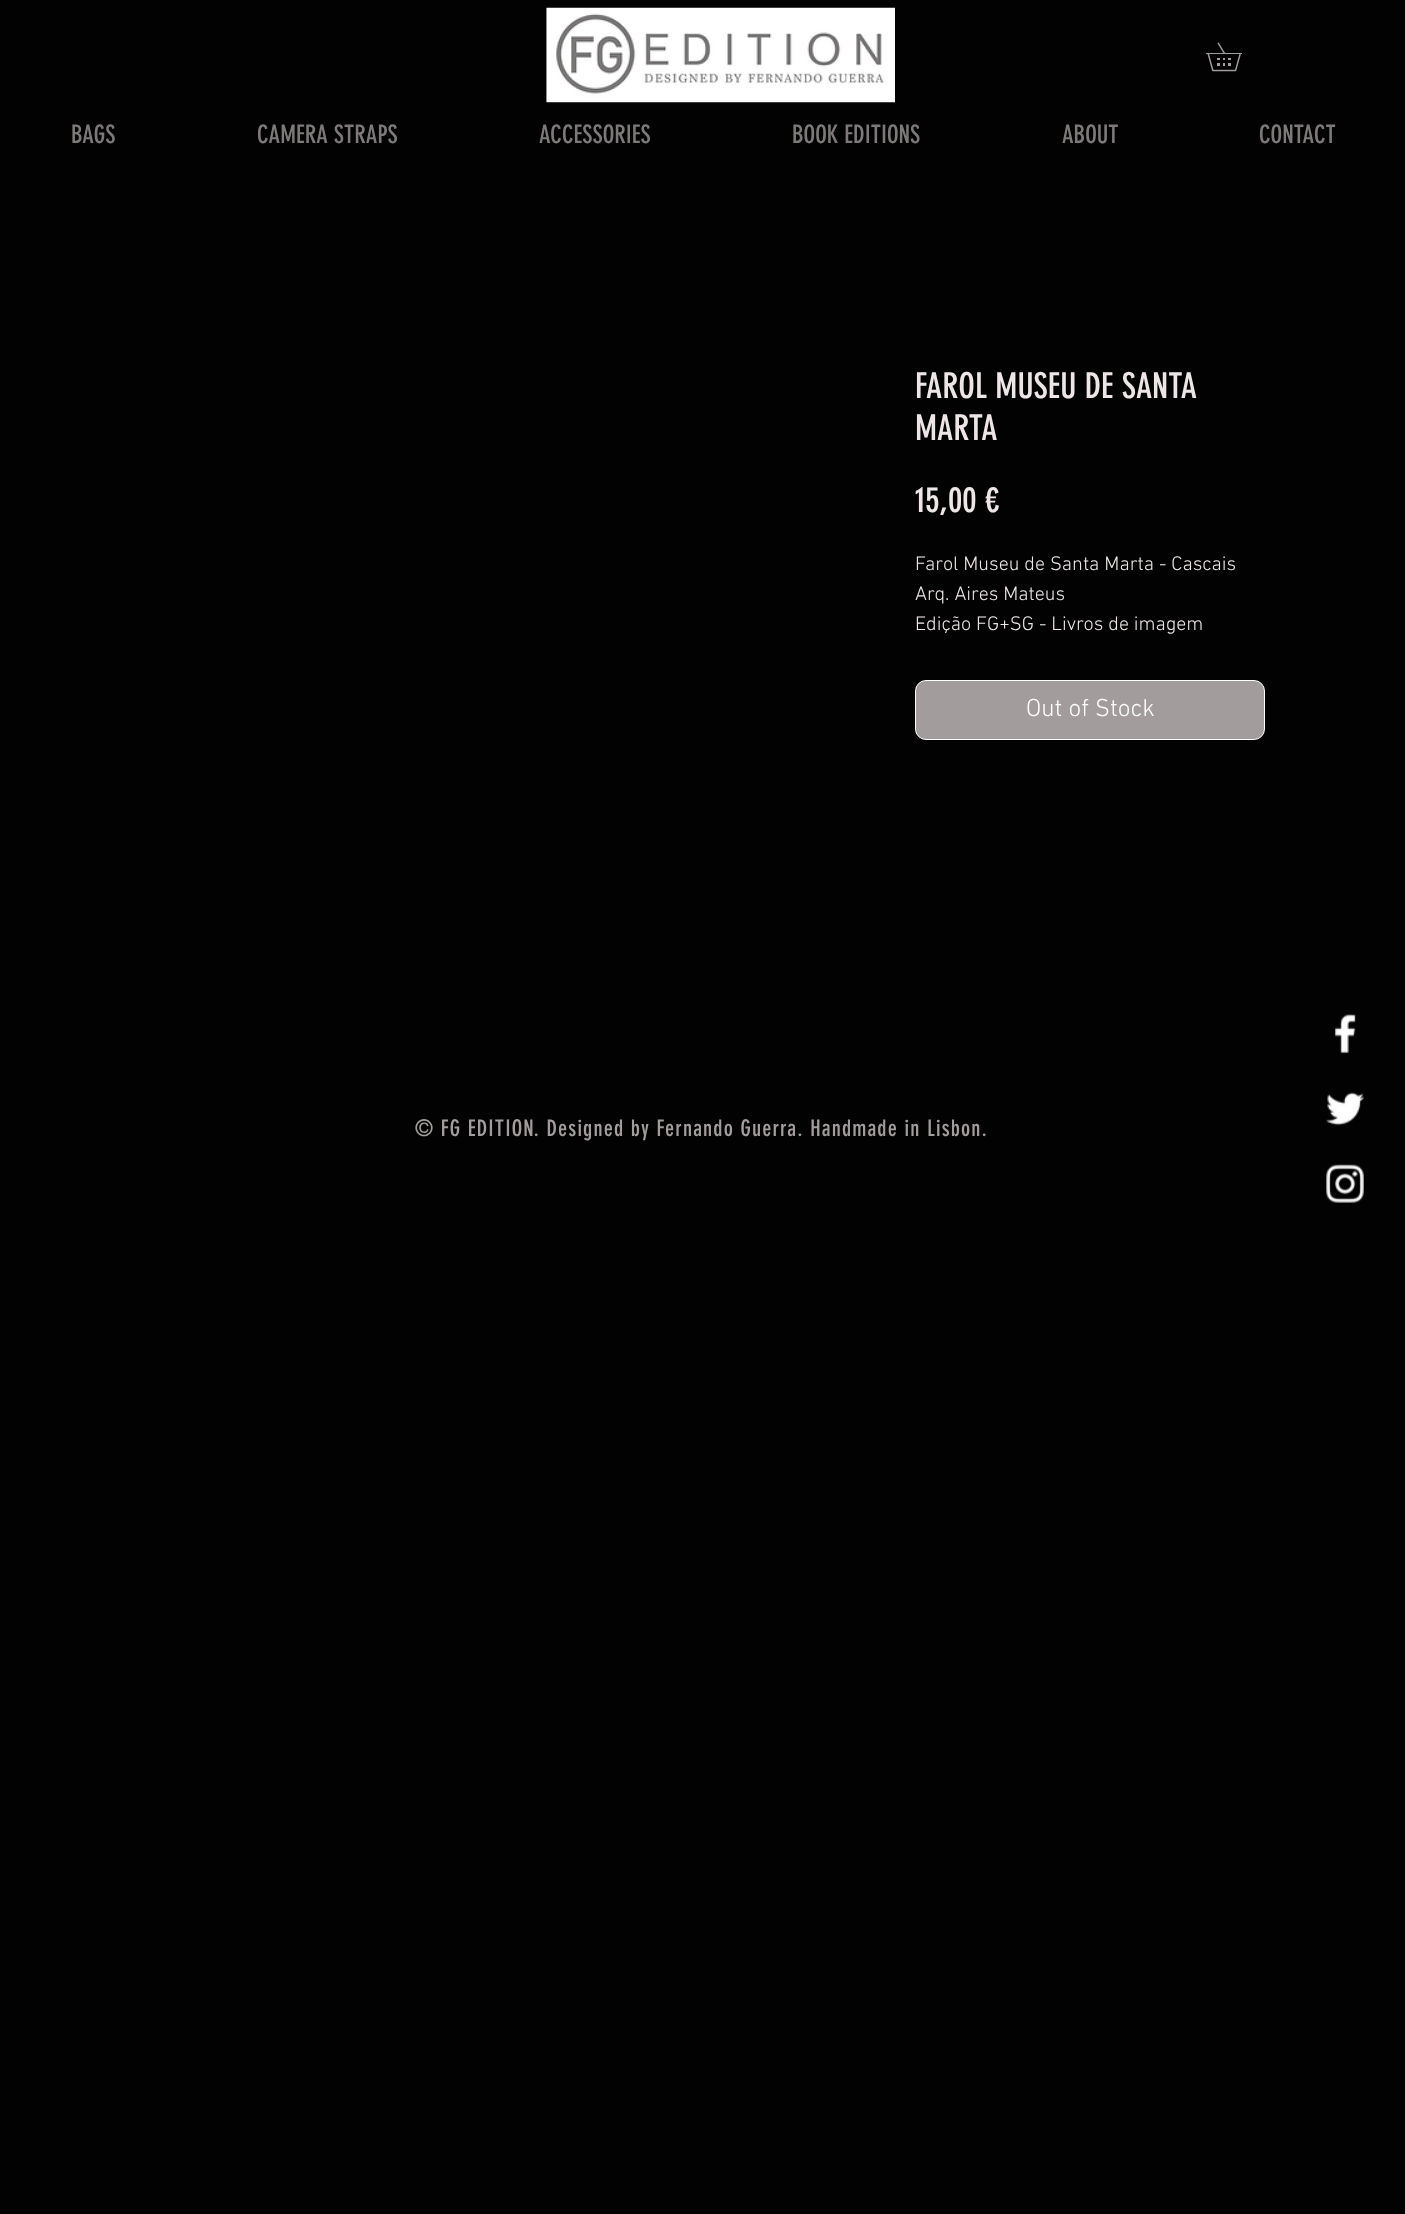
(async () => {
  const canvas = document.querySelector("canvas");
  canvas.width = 1405;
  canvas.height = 2214;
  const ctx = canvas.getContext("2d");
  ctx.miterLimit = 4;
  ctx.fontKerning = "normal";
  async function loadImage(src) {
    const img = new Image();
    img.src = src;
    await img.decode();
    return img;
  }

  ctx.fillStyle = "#020202";
  ctx.fillRect(0, 0, 1405, 2214);
  ctx.drawImage(await loadImage("img/1.png"), 546, 7, 349, 96);
  ctx.drawImage(await loadImage("img/2.png"), 1206, 42, 36, 30);
  ctx.fillStyle = "#a29c9c";
  ctx.beginPath();
  ctx.roundRect(915.5, 680.5, 349, 59, 10.5);
  ctx.fill();
  ctx.strokeStyle = "#ffffff";
  ctx.stroke();
  ctx.drawImage(await loadImage("img/3.png"), 1334, 1014, 22, 40);
  ctx.drawImage(await loadImage("img/4.png"), 1326, 1092, 38, 34);
  ctx.drawImage(await loadImage("img/5.png"), 1326, 1164, 38, 39);
  ctx.font = "25px 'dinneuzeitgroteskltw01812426'";
  ctx.fillStyle = "#7d7979";
  for (const [text, x, y] of [
    ["BAGS", 71, 143],
    ["CAMERA STRAPS", 257, 143],
    ["ACCESSORIES", 539, 143],
    ["BOOK EDITIONS", 792, 143],
    ["ABOUT", 1062, 143],
    ["CONTACT", 1259, 143],
  ]) {
    ctx.fillText(text, x, y);
  }
  ctx.font = "35px 'dinneuzeitgroteskltw01812426'";
  ctx.fillStyle = "#eee6e6";
  for (const [text, x, y] of [
    ["FAROL MUSEU DE SANTA", 915, 398],
    ["MARTA", 915, 440],
    ["15,00 €", 915, 512],
  ]) {
    ctx.fillText(text, x, y);
  }
  ctx.font = "300 20px 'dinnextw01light'";
  for (const [text, x, y] of [
    ["Farol Museu de Santa Marta - Cascais", 915, 570],
    ["Arq. Aires Mateus", 915, 600],
    ["Edição FG+SG - Livros de imagem", 915, 630],
  ]) {
    ctx.fillText(text, x, y);
  }
  ctx.font = "300 25px 'dinnextw01light'";
  ctx.fillStyle = "#ffffff";
  ctx.fillText("Out of Stock", 1026, 716);
  ctx.letterSpacing = "1.12px";
  ctx.font = "22.5px 'dinneuzeitgroteskltw01812426'";
  ctx.fillStyle = "#a29c9c";
  ctx.fillText("© FG EDITION. Designed by Fernando Guerra. Handmade in Lisbon.", 415, 1136);
})();
